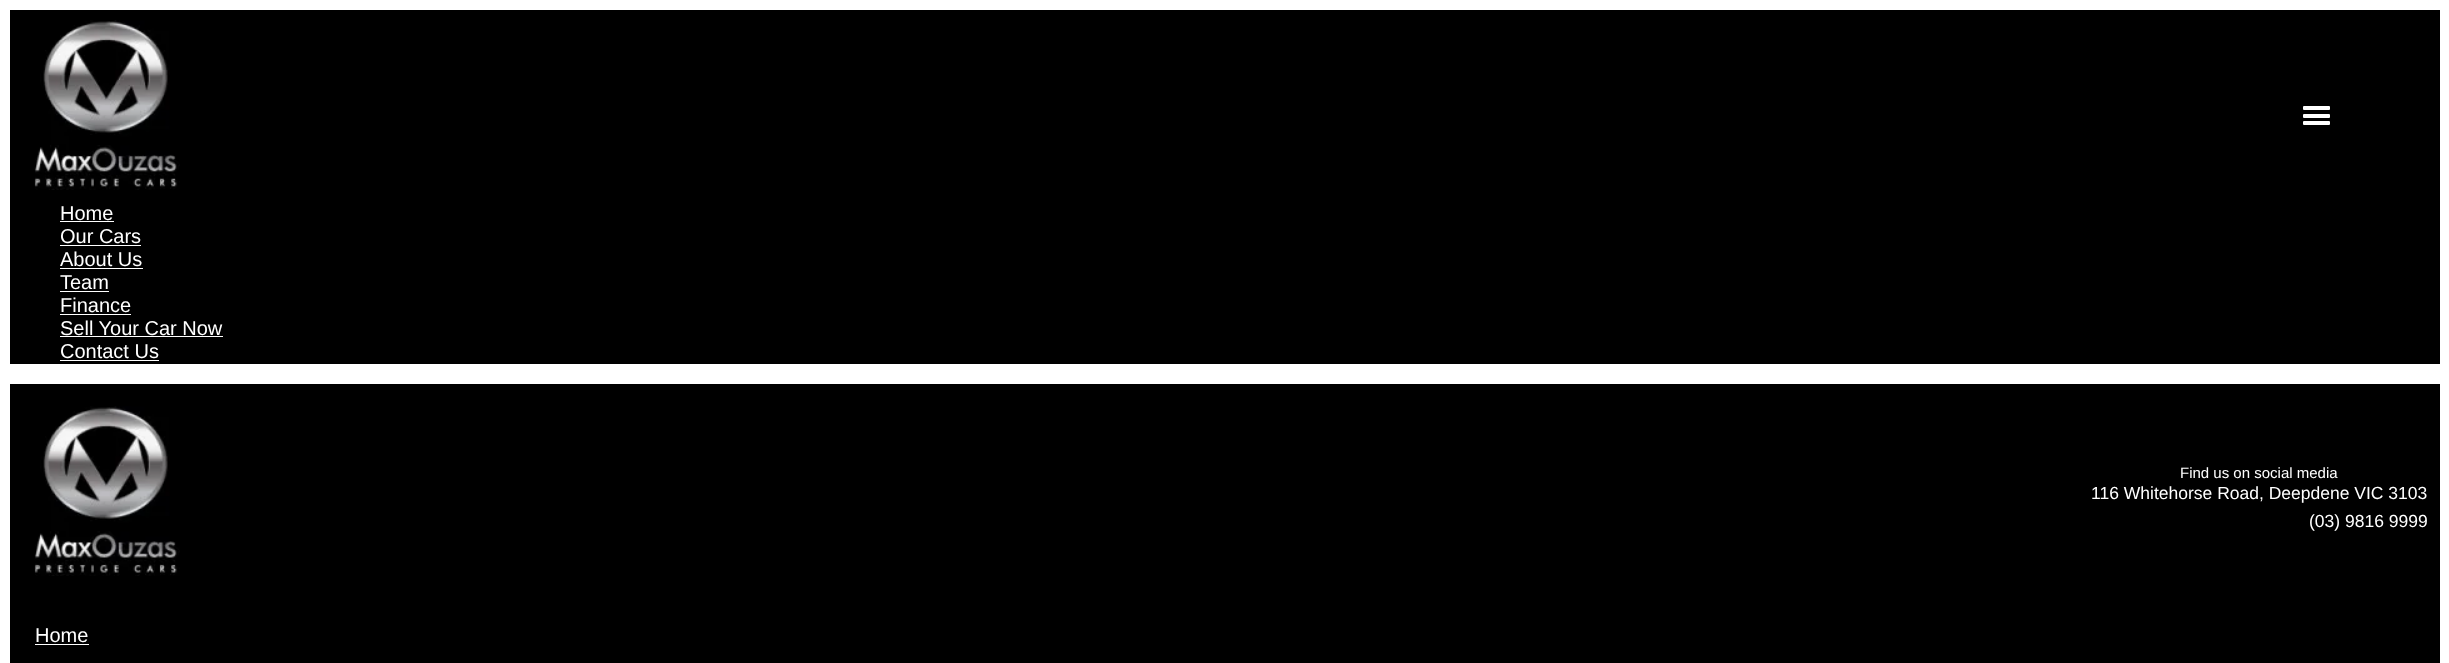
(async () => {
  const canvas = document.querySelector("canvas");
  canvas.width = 2449;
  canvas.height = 663;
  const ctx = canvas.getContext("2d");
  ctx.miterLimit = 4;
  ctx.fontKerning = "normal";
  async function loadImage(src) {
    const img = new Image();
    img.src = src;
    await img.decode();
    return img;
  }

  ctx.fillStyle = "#ffffff";
  ctx.fillRect(0, 0, 2449, 663);
  ctx.fillStyle = "#000000";
  ctx.fillRect(10, 10, 2430, 354);
  ctx.drawImage(await loadImage("img/1.png"), 34, 20, 146, 170);
  ctx.fillStyle = "#ffffff";
  ctx.beginPath();
  ctx.roundRect(2303, 106, 27, 4, 1);
  ctx.fill();
  ctx.beginPath();
  ctx.roundRect(2303, 114, 27, 4, 1);
  ctx.fill();
  ctx.beginPath();
  ctx.roundRect(2303, 121, 27, 4, 1);
  ctx.fill();
  for (const [x, y, w, h, color] of [
    [60, 221, 54, 1, "#ffffff"],
    [60, 245, 81, 1, "#ffffff"],
    [60, 268, 83, 1, "#ffffff"],
    [60, 291, 49, 1, "#ffffff"],
    [60, 314, 71, 1, "#ffffff"],
    [60, 336, 163, 1, "#ffffff"],
    [60, 360, 99, 1, "#ffffff"],
    [10, 384, 2430, 279, "#000000"],
  ]) {
    ctx.fillStyle = color;
    ctx.fillRect(x, y, w, h);
  }
  ctx.drawImage(await loadImage("img/2.png"), 34, 406, 146, 170);
  ctx.fillStyle = "#ffffff";
  ctx.fillRect(35, 644, 54, 1);
  ctx.font = "20px Liberation Sans";
  for (const [text, x, y] of [
    ["Home", 60, 220],
    ["Our Cars", 60, 243],
    ["About Us", 60, 266],
    ["Team", 60, 289],
    ["Finance", 60, 312],
    ["Sell Your Car Now", 60, 335],
    ["Contact Us", 60, 358],
  ]) {
    ctx.fillText(text, x, y);
  }
  ctx.font = "15px Liberation Sans";
  ctx.fillText("Find us on social media", 2180, 478);
  ctx.font = "17.5px Liberation Sans";
  ctx.fillText("116 Whitehorse Road, Deepdene VIC 3103", 2091, 499);
  ctx.fillText("(03) 9816 9999", 2309, 527);
  ctx.font = "20px Liberation Sans";
  ctx.fillText("Home", 35, 642);
})();
